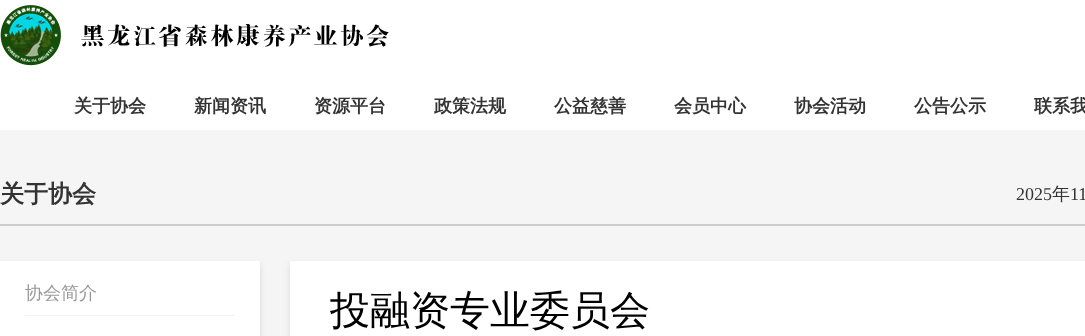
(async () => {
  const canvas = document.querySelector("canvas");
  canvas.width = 1085;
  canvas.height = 336;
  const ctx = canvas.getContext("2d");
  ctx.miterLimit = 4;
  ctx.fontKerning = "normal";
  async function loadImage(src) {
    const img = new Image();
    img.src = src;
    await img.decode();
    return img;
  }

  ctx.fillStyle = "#f5f5f5";
  ctx.fillRect(0, 0, 1085, 336);
  ctx.fillStyle = "#ffffff";
  ctx.fillRect(0, 0, 1085, 130);
  ctx.drawImage(await loadImage("img/1.png"), 0, 5, 389, 61);
  ctx.fillStyle = "#cccccc";
  ctx.fillRect(0, 224, 1085, 2);
  ctx.fillStyle = "rgba(111, 111, 111, 0.2)";
  ctx.filter = "blur(3px)";
  ctx.beginPath();
  ctx.rect(0, 264, 260, 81);
  ctx.fill();
  ctx.filter = "none";
  ctx.fillStyle = "#ffffff";
  ctx.fillRect(0, 261, 260, 75);
  ctx.fillStyle = "#f2f2f2";
  ctx.fillRect(25, 315, 210, 1);
  ctx.fillStyle = "rgba(111, 111, 111, 0.2)";
  ctx.filter = "blur(3px)";
  ctx.beginPath();
  ctx.rect(290, 264, 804, 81);
  ctx.fill();
  ctx.filter = "none";
  ctx.fillStyle = "#ffffff";
  ctx.fillRect(290, 261, 795, 75);
  ctx.font = "bold 18px WenQuanYi Zen Hei";
  ctx.fillStyle = "#333333";
  for (const [text, x, y] of [
    ["关于协会", 74, 112],
    ["新闻资讯", 194, 112],
    ["资源平台", 314, 112],
    ["政策法规", 434, 112],
    ["公益慈善", 554, 112],
    ["会员中心", 674, 112],
    ["协会活动", 794, 112],
    ["公告公示", 914, 112],
    ["联系我", 1034, 112],
  ]) {
    ctx.fillText(text, x, y);
  }
  ctx.font = "bold 24px WenQuanYi Zen Hei";
  ctx.fillText("关于协会", 0, 202);
  ctx.font = "18px Liberation Serif";
  ctx.fillText("2025", 1016, 200);
  ctx.font = "500 18px WenQuanYi Zen Hei";
  ctx.fillText("年", 1052, 200);
  ctx.font = "18px Liberation Serif";
  ctx.fillText("11", 1070, 200);
  ctx.font = "500 18px WenQuanYi Zen Hei";
  ctx.fillStyle = "#999999";
  ctx.fillText("协会简介", 25, 299);
  ctx.font = "500 40px WenQuanYi Zen Hei";
  ctx.fillStyle = "#000000";
  ctx.fillText("投融资专业委员会", 330, 324);
})();
